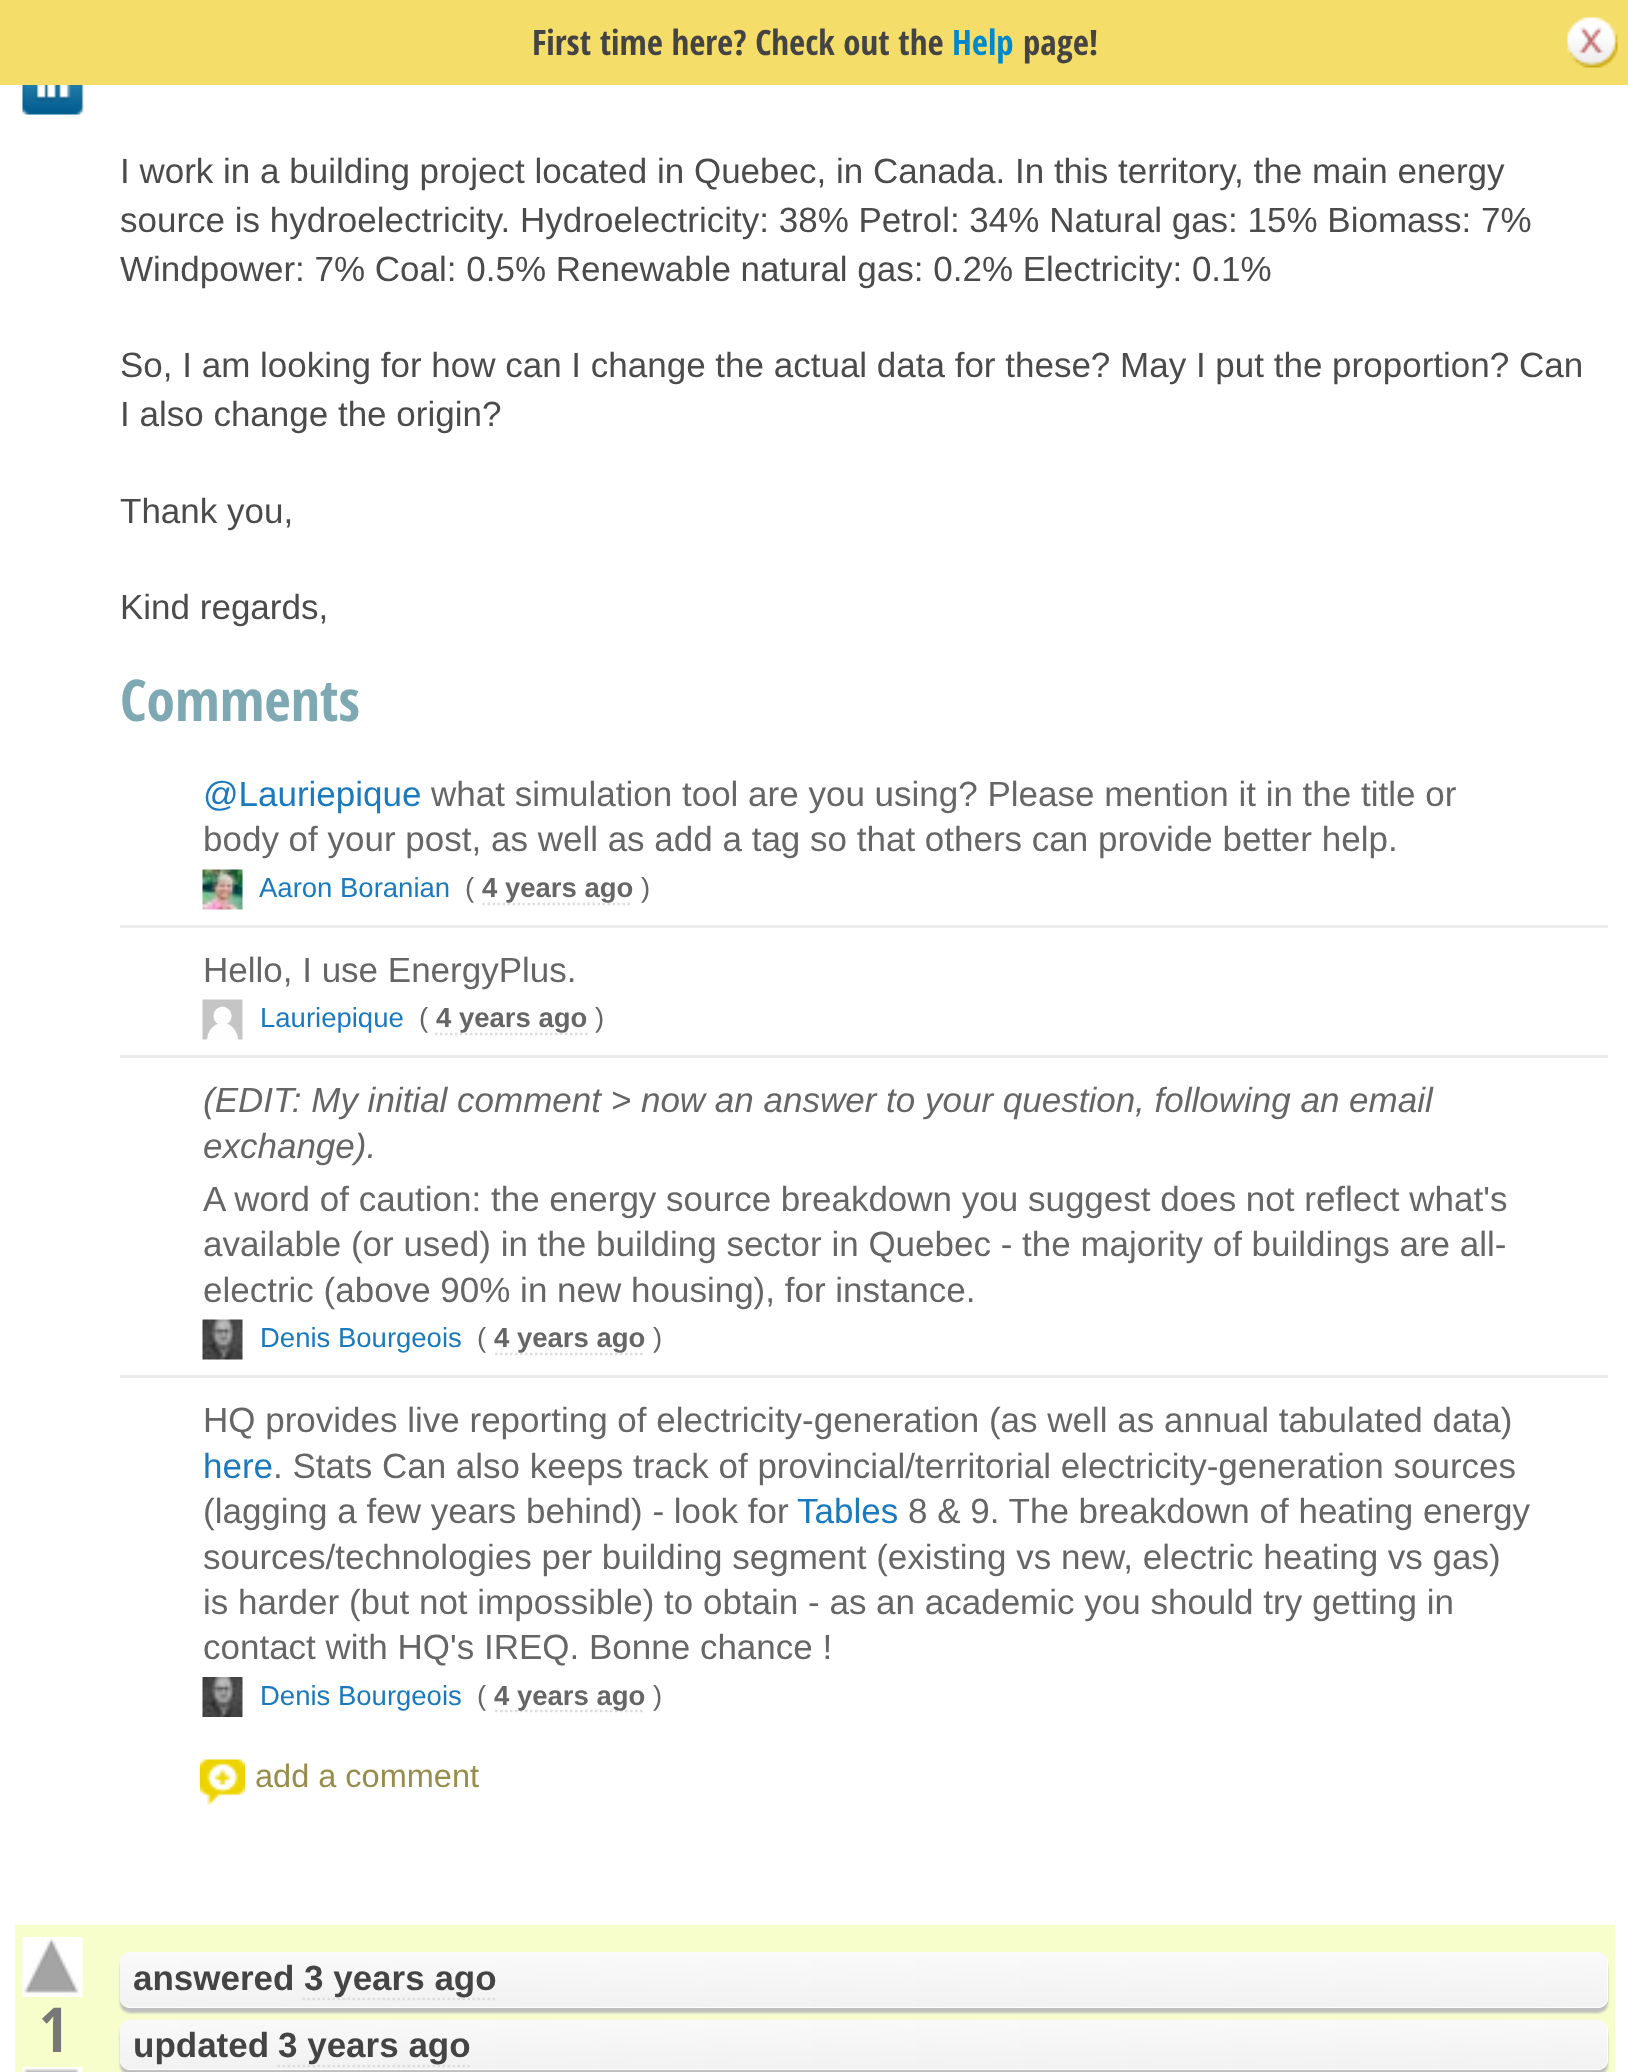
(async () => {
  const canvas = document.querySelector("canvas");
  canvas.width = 1628;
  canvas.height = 2072;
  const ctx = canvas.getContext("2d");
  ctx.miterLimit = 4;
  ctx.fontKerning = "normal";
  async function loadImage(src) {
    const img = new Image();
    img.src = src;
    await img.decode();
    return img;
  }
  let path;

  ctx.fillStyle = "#ffffff";
  ctx.fillRect(0, 0, 1628, 2072);
  ctx.fillStyle = "#f5dd69";
  ctx.fillRect(0, 0, 1628, 85);
  ctx.drawImage(await loadImage("img/1.png"), 1567, 17, 51, 51);
  ctx.drawImage(await loadImage("img/2.png"), 22, 85, 62, 30);
  ctx.fillStyle = "#edeeeb";
  ctx.fillRect(120, 925, 1488, 3);
  ctx.drawImage(await loadImage("img/3.png"), 202, 869, 41, 41);
  path = new Path2D("M482.5 904H632.5");
  ctx.strokeStyle = "#dddddd";
  ctx.lineWidth = 2.5;
  ctx.setLineDash([2.5, 2.5]);
  ctx.stroke(path);
  ctx.fillRect(120, 1055, 1488, 3);
  ctx.drawImage(await loadImage("img/4.png"), 202, 999, 41, 41);
  path = new Path2D("M435 1034H587.5");
  ctx.stroke(path);
  ctx.fillRect(120, 1375, 1488, 3);
  ctx.drawImage(await loadImage("img/5.png"), 202, 1319, 41, 41);
  path = new Path2D("M495 1354H645");
  ctx.stroke(path);
  ctx.drawImage(await loadImage("img/6.png"), 202, 1677, 41, 40);
  path = new Path2D("M495 1711H645");
  ctx.stroke(path);
  ctx.drawImage(await loadImage("img/7.png"), 200, 1759, 45, 46);
  ctx.fillStyle = "#f7fecc";
  ctx.fillRect(15, 1925, 1600, 147);
  ctx.drawImage(await loadImage("img/8.png"), 22, 1937, 61, 60);
  ctx.drawImage(await loadImage("img/9.png"), 22, 2067, 61, 5);
  ctx.save();
  path = new Path2D("M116 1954H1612V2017H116ZM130 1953H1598C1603.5 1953 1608 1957.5 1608 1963V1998C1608 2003.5 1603.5 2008 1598 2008H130C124.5 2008 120 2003.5 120 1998V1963C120 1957.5 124.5 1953 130 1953Z");
  ctx.clip(path, "evenodd");
  ctx.fillStyle = "#bfbfbf";
  ctx.filter = "blur(1px)";
  ctx.beginPath();
  ctx.roundRect(120, 1958, 1488, 55, 10);
  ctx.fill();
  ctx.filter = "none";
  ctx.restore();
  ctx.fillStyle = "#ffffff";
  ctx.beginPath();
  ctx.roundRect(120, 1953, 1488, 55, 10);
  ctx.fill();
  ctx.drawImage(await loadImage("img/10.png"), 120, 1952, 1487, 55);
  path = new Path2D("M302.5 1999H497.5");
  ctx.stroke(path);
  ctx.save();
  path = new Path2D("M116 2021H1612V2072H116ZM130 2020H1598C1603.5 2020 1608 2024.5 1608 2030V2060C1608 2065.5 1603.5 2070 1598 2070H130C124.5 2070 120 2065.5 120 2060V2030C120 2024.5 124.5 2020 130 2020Z");
  ctx.clip(path, "evenodd");
  ctx.fillStyle = "#bfbfbf";
  ctx.filter = "blur(1px)";
  ctx.beginPath();
  ctx.roundRect(120, 2025, 1488, 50, 10);
  ctx.fill();
  ctx.filter = "none";
  ctx.restore();
  ctx.beginPath();
  ctx.roundRect(120, 2020, 1488, 50, 10);
  ctx.fill();
  ctx.drawImage(await loadImage("img/11.png"), 120, 2019, 1487, 50);
  path = new Path2D("M277.5 2066H470");
  ctx.stroke(path);
  ctx.font = "bold 35px Open Sans Condensed";
  ctx.fillStyle = "#444444";
  ctx.fillText("First time here? Check out the", 532, 55);
  ctx.fillStyle = "#0088cc";
  ctx.fillText("Help", 952, 55);
  ctx.fillStyle = "#444444";
  ctx.fillText("page!", 1023, 55);
  ctx.font = "35px Liberation Sans";
  ctx.fillStyle = "#4b4b4b";
  for (const [text, x, y] of [
    ["I work in a building project located in Quebec, in Canada. In this territory, the main energy", 120, 183],
    ["source is hydroelectricity. Hydroelectricity: 38% Petrol: 34% Natural gas: 15% Biomass: 7%", 120, 232],
    ["Windpower: 7% Coal: 0.5% Renewable natural gas: 0.2% Electricity: 0.1%", 120, 281],
    ["So, I am looking for how can I change the actual data for these? May I put the proportion? Can", 120, 377],
    ["I also change the origin?", 120, 426],
    ["Thank you,", 120, 523],
    ["Kind regards,", 120, 619],
  ]) {
    ctx.fillText(text, x, y);
  }
  ctx.font = "bold 57.5px Open Sans Condensed";
  ctx.fillStyle = "#7ea9b3";
  ctx.fillText("Comments", 120, 721);
  ctx.font = "35px Liberation Sans";
  ctx.fillStyle = "#1b79bd";
  ctx.fillText("@Lauriepique", 203, 806);
  ctx.fillStyle = "#666666";
  ctx.fillText("what simulation tool are you using? Please mention it in the title or", 431, 806);
  ctx.fillText("body of your post, as well as add a tag so that others can provide better help.", 203, 851);
  ctx.font = "27.5px Liberation Sans";
  ctx.fillStyle = "#1b79bd";
  ctx.fillText("Aaron Boranian", 259, 897);
  ctx.fillStyle = "#666666";
  ctx.fillText("(", 465, 897);
  ctx.font = "bold 27.5px Liberation Sans";
  ctx.fillText("4 years ago", 482, 897);
  ctx.font = "27.5px Liberation Sans";
  ctx.fillText(")", 641, 897);
  ctx.font = "35px Liberation Sans";
  ctx.fillText("Hello, I use EnergyPlus.", 203, 982);
  ctx.font = "27.5px Liberation Sans";
  ctx.fillStyle = "#1b79bd";
  ctx.fillText("Lauriepique", 260, 1027);
  ctx.fillStyle = "#666666";
  ctx.fillText("(", 419, 1027);
  ctx.font = "bold 27.5px Liberation Sans";
  ctx.fillText("4 years ago", 436, 1027);
  ctx.font = "27.5px Liberation Sans";
  ctx.fillText(")", 595, 1027);
  ctx.font = "italic 35px Liberation Sans";
  ctx.fillText("(EDIT: My initial comment > now an answer to your question, following an email", 203, 1112);
  ctx.fillText("exchange).", 203, 1158);
  ctx.font = "35px Liberation Sans";
  for (const [text, x, y] of [
    ["A word of caution: the energy source breakdown you suggest does not reflect what's", 203, 1211],
    ["available (or used) in the building sector in Quebec - the majority of buildings are all-", 203, 1256],
    ["electric (above 90% in new housing), for instance.", 203, 1302],
  ]) {
    ctx.fillText(text, x, y);
  }
  ctx.font = "27.5px Liberation Sans";
  ctx.fillStyle = "#1b79bd";
  ctx.fillText("Denis Bourgeois", 260, 1347);
  ctx.fillStyle = "#666666";
  ctx.fillText("(", 477, 1347);
  ctx.font = "bold 27.5px Liberation Sans";
  ctx.fillText("4 years ago", 494, 1347);
  ctx.font = "27.5px Liberation Sans";
  ctx.fillText(")", 653, 1347);
  ctx.font = "35px Liberation Sans";
  ctx.fillText("HQ provides live reporting of electricity-generation (as well as annual tabulated data)", 203, 1432);
  ctx.fillStyle = "#1b79bd";
  ctx.fillText("here", 203, 1478);
  ctx.fillStyle = "#666666";
  ctx.fillText(". Stats Can also keeps track of provincial/territorial electricity-generation sources", 273, 1478);
  ctx.fillText("(lagging a few years behind) - look for", 203, 1523);
  ctx.fillStyle = "#1b79bd";
  ctx.fillText("Tables", 797, 1523);
  ctx.fillStyle = "#666666";
  for (const [text, x, y] of [
    ["8 & 9. The breakdown of heating energy", 908, 1523],
    ["sources/technologies per building segment (existing vs new, electric heating vs gas)", 203, 1569],
    ["is harder (but not impossible) to obtain - as an academic you should try getting in", 203, 1614],
    ["contact with HQ's IREQ. Bonne chance !", 203, 1659],
  ]) {
    ctx.fillText(text, x, y);
  }
  ctx.font = "27.5px Liberation Sans";
  ctx.fillStyle = "#1b79bd";
  ctx.fillText("Denis Bourgeois", 260, 1705);
  ctx.fillStyle = "#666666";
  ctx.fillText("(", 477, 1705);
  ctx.font = "bold 27.5px Liberation Sans";
  ctx.fillText("4 years ago", 494, 1705);
  ctx.font = "27.5px Liberation Sans";
  ctx.fillText(")", 653, 1705);
  ctx.font = "32.5px Liberation Sans";
  ctx.fillStyle = "#988e4c";
  ctx.fillText("add a comment", 255, 1787);
  ctx.font = "bold 62px Open Sans Condensed";
  ctx.fillStyle = "#777777";
  ctx.fillText("1", 39, 2052);
  ctx.font = "bold 35px Liberation Sans";
  ctx.fillStyle = "#444444";
  for (const [text, x, y] of [
    ["answered", 133, 1990],
    ["3 years ago", 304, 1990],
    ["updated", 133, 2057],
    ["3 years ago", 278, 2057],
  ]) {
    ctx.fillText(text, x, y);
  }
})();
